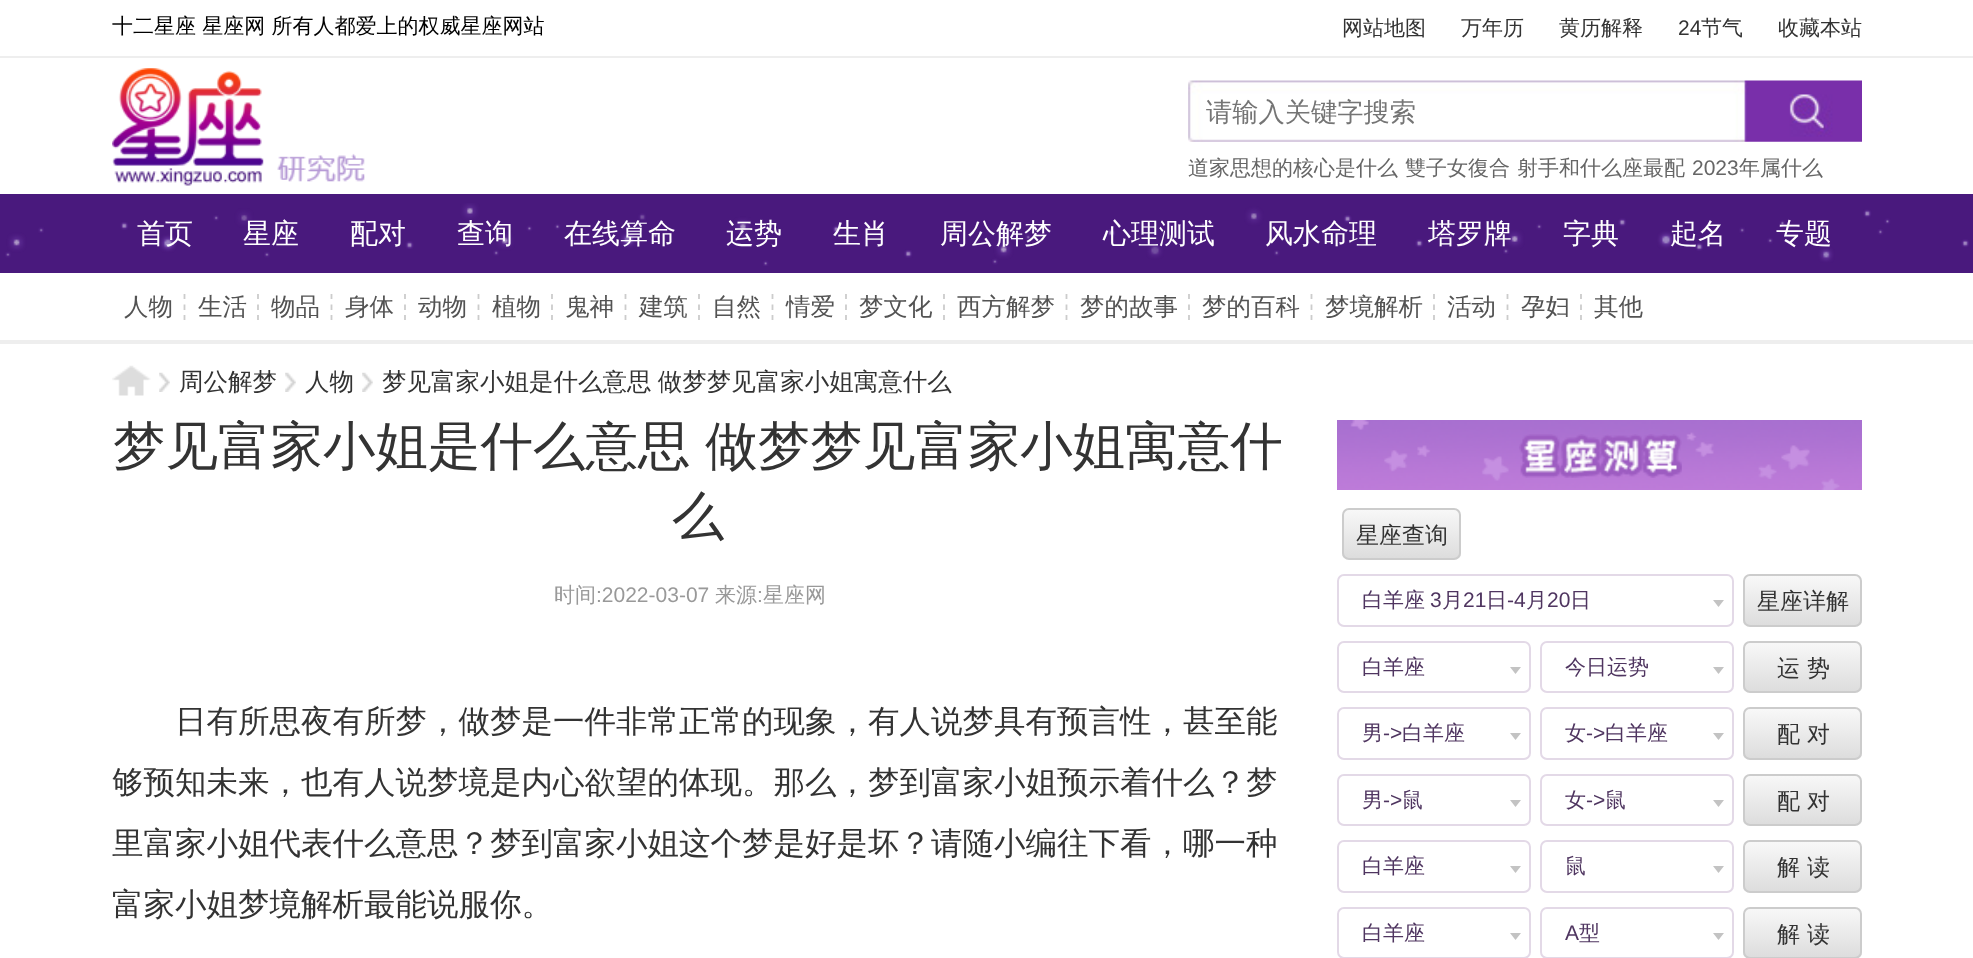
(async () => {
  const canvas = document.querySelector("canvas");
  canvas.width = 1973;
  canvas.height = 958;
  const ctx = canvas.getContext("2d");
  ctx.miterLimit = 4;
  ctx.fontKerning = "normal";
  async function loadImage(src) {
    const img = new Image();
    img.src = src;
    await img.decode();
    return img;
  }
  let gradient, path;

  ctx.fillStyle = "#ffffff";
  ctx.fillRect(0, 0, 1973, 958);
  ctx.fillStyle = "#eeeeee";
  ctx.fillRect(0, 56, 1973, 2);
  ctx.drawImage(await loadImage("img/1.png"), 112, 68, 253, 118);
  ctx.drawImage(await loadImage("img/2.png"), 1188, 80, 674, 62);
  ctx.fillStyle = "#49197d";
  ctx.fillRect(0, 194, 1973, 79);
  ctx.drawImage(await loadImage("img/3.png"), 5, 203, 1964, 63);
  ctx.fillStyle = "#eeeeee";
  ctx.fillRect(0, 340, 1973, 4);
  path = new Path2D("M184.5 294V299M184.5 304.5V310M184.5 315V320");
  ctx.strokeStyle = "#cccccc";
  ctx.lineWidth = 1.8;
  ctx.stroke(path);
  path = new Path2D("M258 294V299M258 304.5V310M258 315V320");
  ctx.stroke(path);
  path = new Path2D("M331.5 294V299M331.5 304.5V310M331.5 315V320");
  ctx.stroke(path);
  path = new Path2D("M405 294V299M405 304.5V310M405 315V320");
  ctx.stroke(path);
  path = new Path2D("M478.5 294V299M478.5 304.5V310M478.5 315V320");
  ctx.stroke(path);
  path = new Path2D("M552 294V299M552 304.5V310M552 315V320");
  ctx.stroke(path);
  path = new Path2D("M625.5 294V299M625.5 304.5V310M625.5 315V320");
  ctx.stroke(path);
  path = new Path2D("M699 294V299M699 304.5V310M699 315V320");
  ctx.stroke(path);
  path = new Path2D("M772.5 294V299M772.5 304.5V310M772.5 315V320");
  ctx.stroke(path);
  path = new Path2D("M846 294V299M846 304.5V310M846 315V320");
  ctx.stroke(path);
  path = new Path2D("M944 294V299M944 304.5V310M944 315V320");
  ctx.stroke(path);
  path = new Path2D("M1066.5 294V299M1066.5 304.5V310M1066.5 315V320");
  ctx.stroke(path);
  path = new Path2D("M1189 294V299M1189 304.5V310M1189 315V320");
  ctx.stroke(path);
  path = new Path2D("M1311.5 294V299M1311.5 304.5V310M1311.5 315V320");
  ctx.stroke(path);
  path = new Path2D("M1434 294V299M1434 304.5V310M1434 315V320");
  ctx.stroke(path);
  path = new Path2D("M1507.5 294V299M1507.5 304.5V310M1507.5 315V320");
  ctx.stroke(path);
  path = new Path2D("M1581 294V299M1581 304.5V310M1581 315V320");
  ctx.stroke(path);
  ctx.drawImage(await loadImage("img/4.png"), 112, 365, 39, 31);
  ctx.drawImage(await loadImage("img/5.png"), 159, 372, 11, 20);
  ctx.drawImage(await loadImage("img/6.png"), 285, 372, 11, 20);
  ctx.drawImage(await loadImage("img/5.png"), 362, 372, 11, 20);
  ctx.drawImage(await loadImage("img/7.png"), 1337, 420, 525, 70);
  ctx.drawImage(await loadImage("img/8.png"), 1519, 434, 163, 44);
  ctx.save();
  ctx.beginPath();
  ctx.roundRect(1342, 508, 119, 52, 7);
  ctx.clip();
  gradient = ctx.createLinearGradient(1402, 509, 1402, 558);
  gradient.addColorStop(0, "#f8f8f8");
  gradient.addColorStop(1, "#dddddd");
  ctx.fillStyle = gradient;
  ctx.fillRect(1342, 509, 119, 49);
  ctx.restore();
  ctx.beginPath();
  ctx.roundRect(1343, 509, 117, 50, 6);
  ctx.lineWidth = 2;
  ctx.stroke();
  ctx.beginPath();
  ctx.roundRect(1338, 575, 395, 51, 6);
  ctx.strokeStyle = "#e3d9e7";
  ctx.stroke();
  ctx.fillStyle = "#c3c3c3";
  path = new Path2D("M1713 600H1724L1718.5 607Z");
  ctx.fill(path);
  ctx.save();
  ctx.beginPath();
  ctx.roundRect(1743, 574, 119, 53, 7);
  ctx.clip();
  gradient = ctx.createLinearGradient(1803, 576, 1803, 625);
  gradient.addColorStop(0, "#f8f8f8");
  gradient.addColorStop(1, "#dddddd");
  ctx.fillStyle = gradient;
  ctx.fillRect(1743, 576, 119, 49);
  ctx.restore();
  ctx.beginPath();
  ctx.roundRect(1744, 575, 117, 51, 6);
  ctx.strokeStyle = "#cccccc";
  ctx.stroke();
  ctx.beginPath();
  ctx.roundRect(1338, 642, 192, 50, 6);
  ctx.strokeStyle = "#e3d9e7";
  ctx.stroke();
  path = new Path2D("M1510 667H1521L1515.5 674Z");
  ctx.fill(path);
  ctx.beginPath();
  ctx.roundRect(1541, 642, 192, 50, 6);
  ctx.stroke();
  path = new Path2D("M1713 667H1724L1718.5 674Z");
  ctx.fill(path);
  ctx.save();
  ctx.beginPath();
  ctx.roundRect(1743, 641, 119, 52, 7);
  ctx.clip();
  gradient = ctx.createLinearGradient(1803, 642, 1803, 691);
  gradient.addColorStop(0, "#f8f8f8");
  gradient.addColorStop(1, "#dddddd");
  ctx.fillStyle = gradient;
  ctx.fillRect(1743, 642, 119, 49);
  ctx.restore();
  ctx.beginPath();
  ctx.roundRect(1744, 642, 117, 50, 6);
  ctx.strokeStyle = "#cccccc";
  ctx.stroke();
  ctx.beginPath();
  ctx.roundRect(1338, 708, 192, 51, 6);
  ctx.strokeStyle = "#e3d9e7";
  ctx.stroke();
  path = new Path2D("M1510 733H1521L1515.5 740Z");
  ctx.fill(path);
  ctx.beginPath();
  ctx.roundRect(1541, 708, 192, 51, 6);
  ctx.stroke();
  path = new Path2D("M1713 733H1724L1718.5 740Z");
  ctx.fill(path);
  ctx.save();
  ctx.beginPath();
  ctx.roundRect(1743, 707, 119, 53, 7);
  ctx.clip();
  gradient = ctx.createLinearGradient(1803, 709, 1803, 758);
  gradient.addColorStop(0, "#f8f8f8");
  gradient.addColorStop(1, "#dddddd");
  ctx.fillStyle = gradient;
  ctx.fillRect(1743, 709, 119, 49);
  ctx.restore();
  ctx.beginPath();
  ctx.roundRect(1744, 708, 117, 51, 6);
  ctx.strokeStyle = "#cccccc";
  ctx.stroke();
  ctx.beginPath();
  ctx.roundRect(1338, 775, 192, 50, 6);
  ctx.strokeStyle = "#e3d9e7";
  ctx.stroke();
  path = new Path2D("M1510 800H1521L1515.5 807Z");
  ctx.fill(path);
  ctx.beginPath();
  ctx.roundRect(1541, 775, 192, 50, 6);
  ctx.stroke();
  path = new Path2D("M1713 800H1724L1718.5 807Z");
  ctx.fill(path);
  ctx.save();
  ctx.beginPath();
  ctx.roundRect(1743, 774, 119, 52, 7);
  ctx.clip();
  gradient = ctx.createLinearGradient(1803, 775, 1803, 824);
  gradient.addColorStop(0, "#f8f8f8");
  gradient.addColorStop(1, "#dddddd");
  ctx.fillStyle = gradient;
  ctx.fillRect(1743, 775, 119, 49);
  ctx.restore();
  ctx.beginPath();
  ctx.roundRect(1744, 775, 117, 50, 6);
  ctx.strokeStyle = "#cccccc";
  ctx.stroke();
  ctx.beginPath();
  ctx.roundRect(1338, 841, 192, 51, 6);
  ctx.strokeStyle = "#e3d9e7";
  ctx.stroke();
  path = new Path2D("M1510 866H1521L1515.5 873Z");
  ctx.fill(path);
  ctx.beginPath();
  ctx.roundRect(1541, 841, 192, 51, 6);
  ctx.stroke();
  path = new Path2D("M1713 866H1724L1718.5 873Z");
  ctx.fill(path);
  ctx.save();
  ctx.beginPath();
  ctx.roundRect(1743, 840, 119, 53, 7);
  ctx.clip();
  gradient = ctx.createLinearGradient(1803, 842, 1803, 891);
  gradient.addColorStop(0, "#f8f8f8");
  gradient.addColorStop(1, "#dddddd");
  ctx.fillStyle = gradient;
  ctx.fillRect(1743, 842, 119, 49);
  ctx.restore();
  ctx.beginPath();
  ctx.roundRect(1744, 841, 117, 51, 6);
  ctx.strokeStyle = "#cccccc";
  ctx.stroke();
  ctx.beginPath();
  ctx.roundRect(1338, 908, 192, 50, 6);
  ctx.strokeStyle = "#e3d9e7";
  ctx.stroke();
  path = new Path2D("M1510 933H1521L1515.5 940Z");
  ctx.fill(path);
  ctx.beginPath();
  ctx.roundRect(1541, 908, 192, 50, 6);
  ctx.stroke();
  path = new Path2D("M1713 933H1724L1718.5 940Z");
  ctx.fill(path);
  ctx.save();
  ctx.beginPath();
  ctx.roundRect(1743, 907, 119, 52, 7);
  ctx.clip();
  gradient = ctx.createLinearGradient(1803, 908, 1803, 957);
  gradient.addColorStop(0, "#f8f8f8");
  gradient.addColorStop(1, "#dddddd");
  ctx.fillStyle = gradient;
  ctx.fillRect(1743, 908, 119, 49);
  ctx.restore();
  ctx.beginPath();
  ctx.roundRect(1744, 908, 117, 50, 6);
  ctx.strokeStyle = "#cccccc";
  ctx.stroke();
  ctx.font = "500 21px WenQuanYi Zen Hei";
  ctx.fillStyle = "#000000";
  ctx.fillText("十二星座 星座网 所有人都爱上的权威星座网站", 112, 33);
  ctx.fillStyle = "#333333";
  for (const [text, x, y] of [
    ["网站地图", 1342, 35],
    ["万年历", 1461, 35],
    ["黄历解释", 1559, 35],
  ]) {
    ctx.fillText(text, x, y);
  }
  ctx.font = "21px Liberation Sans";
  ctx.fillText("24", 1678, 35);
  ctx.font = "500 21px WenQuanYi Zen Hei";
  ctx.fillText("节气", 1701, 35);
  ctx.fillText("收藏本站", 1778, 35);
  ctx.font = "500 26.25px WenQuanYi Zen Hei";
  ctx.fillStyle = "#757575";
  ctx.fillText("请输入关键字搜索", 1206, 121);
  ctx.font = "500 21px WenQuanYi Zen Hei";
  ctx.fillStyle = "#666666";
  for (const [text, x, y] of [
    ["道家思想的核心是什么", 1188, 175],
    ["雙子女復合", 1405, 175],
    ["射手和什么座最配", 1517, 175],
  ]) {
    ctx.fillText(text, x, y);
  }
  ctx.font = "21px Liberation Sans";
  ctx.fillText("2023", 1692, 175);
  ctx.font = "500 21px WenQuanYi Zen Hei";
  ctx.fillText("年属什么", 1739, 175);
  ctx.font = "500 28px WenQuanYi Zen Hei";
  ctx.fillStyle = "#ffffff";
  for (const [text, x, y] of [
    ["首页", 137, 243],
    ["星座", 243, 243],
    ["配对", 350, 243],
    ["查询", 457, 243],
    ["在线算命", 564, 243],
    ["运势", 726, 243],
    ["生肖", 833, 243],
    ["周公解梦", 940, 243],
    ["心理测试", 1103, 243],
    ["风水命理", 1265, 243],
    ["塔罗牌", 1428, 243],
    ["字典", 1563, 243],
    ["起名", 1670, 243],
    ["专题", 1776, 243],
  ]) {
    ctx.fillText(text, x, y);
  }
  ctx.font = "500 24.5px WenQuanYi Zen Hei";
  ctx.fillStyle = "#535353";
  for (const [text, x, y] of [
    ["人物", 124, 315],
    ["生活", 198, 315],
    ["物品", 271, 315],
    ["身体", 345, 315],
    ["动物", 418, 315],
    ["植物", 492, 315],
    ["鬼神", 565, 315],
    ["建筑", 639, 315],
    ["自然", 712, 315],
    ["情爱", 786, 315],
    ["梦文化", 859, 315],
    ["西方解梦", 957, 315],
    ["梦的故事", 1080, 315],
    ["梦的百科", 1202, 315],
    ["梦境解析", 1325, 315],
    ["活动", 1447, 315],
    ["孕妇", 1521, 315],
    ["其他", 1594, 315],
  ]) {
    ctx.fillText(text, x, y);
  }
  ctx.fillStyle = "#333333";
  ctx.fillText("周公解梦", 179, 390);
  ctx.fillText("人物", 305, 390);
  ctx.wordSpacing = "-1px";
  ctx.fillText("梦见富家小姐是什么意思 做梦梦见富家小姐寓意什么", 382, 390);
  ctx.save();
  ctx.beginPath();
  ctx.rect(0, 420, 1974, 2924);
  ctx.clip();
  ctx.font = "500 52.5px WenQuanYi Zen Hei";
  ctx.fillText("梦见富家小姐是什么意思 做梦梦见富家小姐寓意什", 113, 464);
  ctx.restore();
  ctx.wordSpacing = "0px";
  ctx.font = "500 52.5px WenQuanYi Zen Hei";
  ctx.fillText("么", 672, 534);
  ctx.font = "500 21px WenQuanYi Zen Hei";
  ctx.fillStyle = "#999999";
  ctx.fillText("时间", 554, 602);
  ctx.font = "21px Liberation Sans";
  ctx.fillText(":2022-03-07", 596, 602);
  ctx.font = "500 21px WenQuanYi Zen Hei";
  ctx.fillText("来源", 715, 602);
  ctx.font = "21px Liberation Sans";
  ctx.fillText(":", 757, 602);
  ctx.font = "500 21px WenQuanYi Zen Hei";
  ctx.fillText("星座网", 763, 602);
  ctx.font = "500 31.5px WenQuanYi Zen Hei";
  ctx.fillStyle = "#333333";
  for (const [text, x, y] of [
    ["日有所思夜有所梦，做梦是一件非常正常的现象，有人说梦具有预言性，甚至能", 175, 732],
    ["够预知未来，也有人说梦境是内心欲望的体现。那么，梦到富家小姐预示着什么？梦", 112, 793],
    ["里富家小姐代表什么意思？梦到富家小姐这个梦是好是坏？请随小编往下看，哪一种", 112, 854],
    ["富家小姐梦境解析最能说服你。", 112, 915],
  ]) {
    ctx.fillText(text, x, y);
  }
  ctx.font = "500 23px WenQuanYi Zen Hei";
  ctx.fillText("星座查询", 1356, 543);
  ctx.font = "500 21px WenQuanYi Zen Hei";
  ctx.fillStyle = "#4f3560";
  ctx.fillText("白羊座", 1362, 607);
  ctx.font = "21px Liberation Sans";
  ctx.fillText("3", 1430, 607);
  ctx.font = "500 21px WenQuanYi Zen Hei";
  ctx.fillText("月", 1442, 607);
  ctx.font = "21px Liberation Sans";
  ctx.fillText("21", 1463, 607);
  ctx.font = "500 21px WenQuanYi Zen Hei";
  ctx.fillText("日", 1486, 607);
  ctx.font = "21px Liberation Sans";
  ctx.fillText("-4", 1507, 607);
  ctx.font = "500 21px WenQuanYi Zen Hei";
  ctx.fillText("月", 1526, 607);
  ctx.font = "21px Liberation Sans";
  ctx.fillText("20", 1547, 607);
  ctx.font = "500 21px WenQuanYi Zen Hei";
  ctx.fillText("日", 1570, 607);
  ctx.font = "500 23px WenQuanYi Zen Hei";
  ctx.fillStyle = "#333333";
  ctx.fillText("星座详解", 1757, 609);
  ctx.font = "500 21px WenQuanYi Zen Hei";
  ctx.fillStyle = "#4f3560";
  ctx.fillText("白羊座", 1362, 674);
  ctx.fillText("今日运势", 1565, 674);
  ctx.font = "500 23px WenQuanYi Zen Hei";
  ctx.fillStyle = "#333333";
  ctx.fillText("运 势", 1777, 676);
  ctx.font = "500 21px WenQuanYi Zen Hei";
  ctx.fillStyle = "#4f3560";
  ctx.fillText("男", 1362, 740);
  ctx.font = "21px Liberation Sans";
  ctx.fillText("->", 1383, 740);
  ctx.font = "500 21px WenQuanYi Zen Hei";
  ctx.fillText("白羊座", 1402, 740);
  ctx.fillText("女", 1565, 740);
  ctx.font = "21px Liberation Sans";
  ctx.fillText("->", 1586, 740);
  ctx.font = "500 21px WenQuanYi Zen Hei";
  ctx.fillText("白羊座", 1605, 740);
  ctx.font = "500 23px WenQuanYi Zen Hei";
  ctx.fillStyle = "#333333";
  ctx.fillText("配 对", 1777, 742);
  ctx.font = "500 21px WenQuanYi Zen Hei";
  ctx.fillStyle = "#4f3560";
  ctx.fillText("男", 1362, 807);
  ctx.font = "21px Liberation Sans";
  ctx.fillText("->", 1383, 807);
  ctx.font = "500 21px WenQuanYi Zen Hei";
  ctx.fillText("鼠", 1402, 807);
  ctx.fillText("女", 1565, 807);
  ctx.font = "21px Liberation Sans";
  ctx.fillText("->", 1586, 807);
  ctx.font = "500 21px WenQuanYi Zen Hei";
  ctx.fillText("鼠", 1605, 807);
  ctx.font = "500 23px WenQuanYi Zen Hei";
  ctx.fillStyle = "#333333";
  ctx.fillText("配 对", 1777, 809);
  ctx.font = "500 21px WenQuanYi Zen Hei";
  ctx.fillStyle = "#4f3560";
  ctx.fillText("白羊座", 1362, 873);
  ctx.fillText("鼠", 1565, 873);
  ctx.font = "500 23px WenQuanYi Zen Hei";
  ctx.fillStyle = "#333333";
  ctx.fillText("解 读", 1777, 875);
  ctx.font = "500 21px WenQuanYi Zen Hei";
  ctx.fillStyle = "#4f3560";
  ctx.fillText("白羊座", 1362, 940);
  ctx.font = "21px Liberation Sans";
  ctx.fillText("A", 1565, 940);
  ctx.font = "500 21px WenQuanYi Zen Hei";
  ctx.fillText("型", 1579, 940);
  ctx.font = "500 23px WenQuanYi Zen Hei";
  ctx.fillStyle = "#333333";
  ctx.fillText("解 读", 1777, 942);
})();
